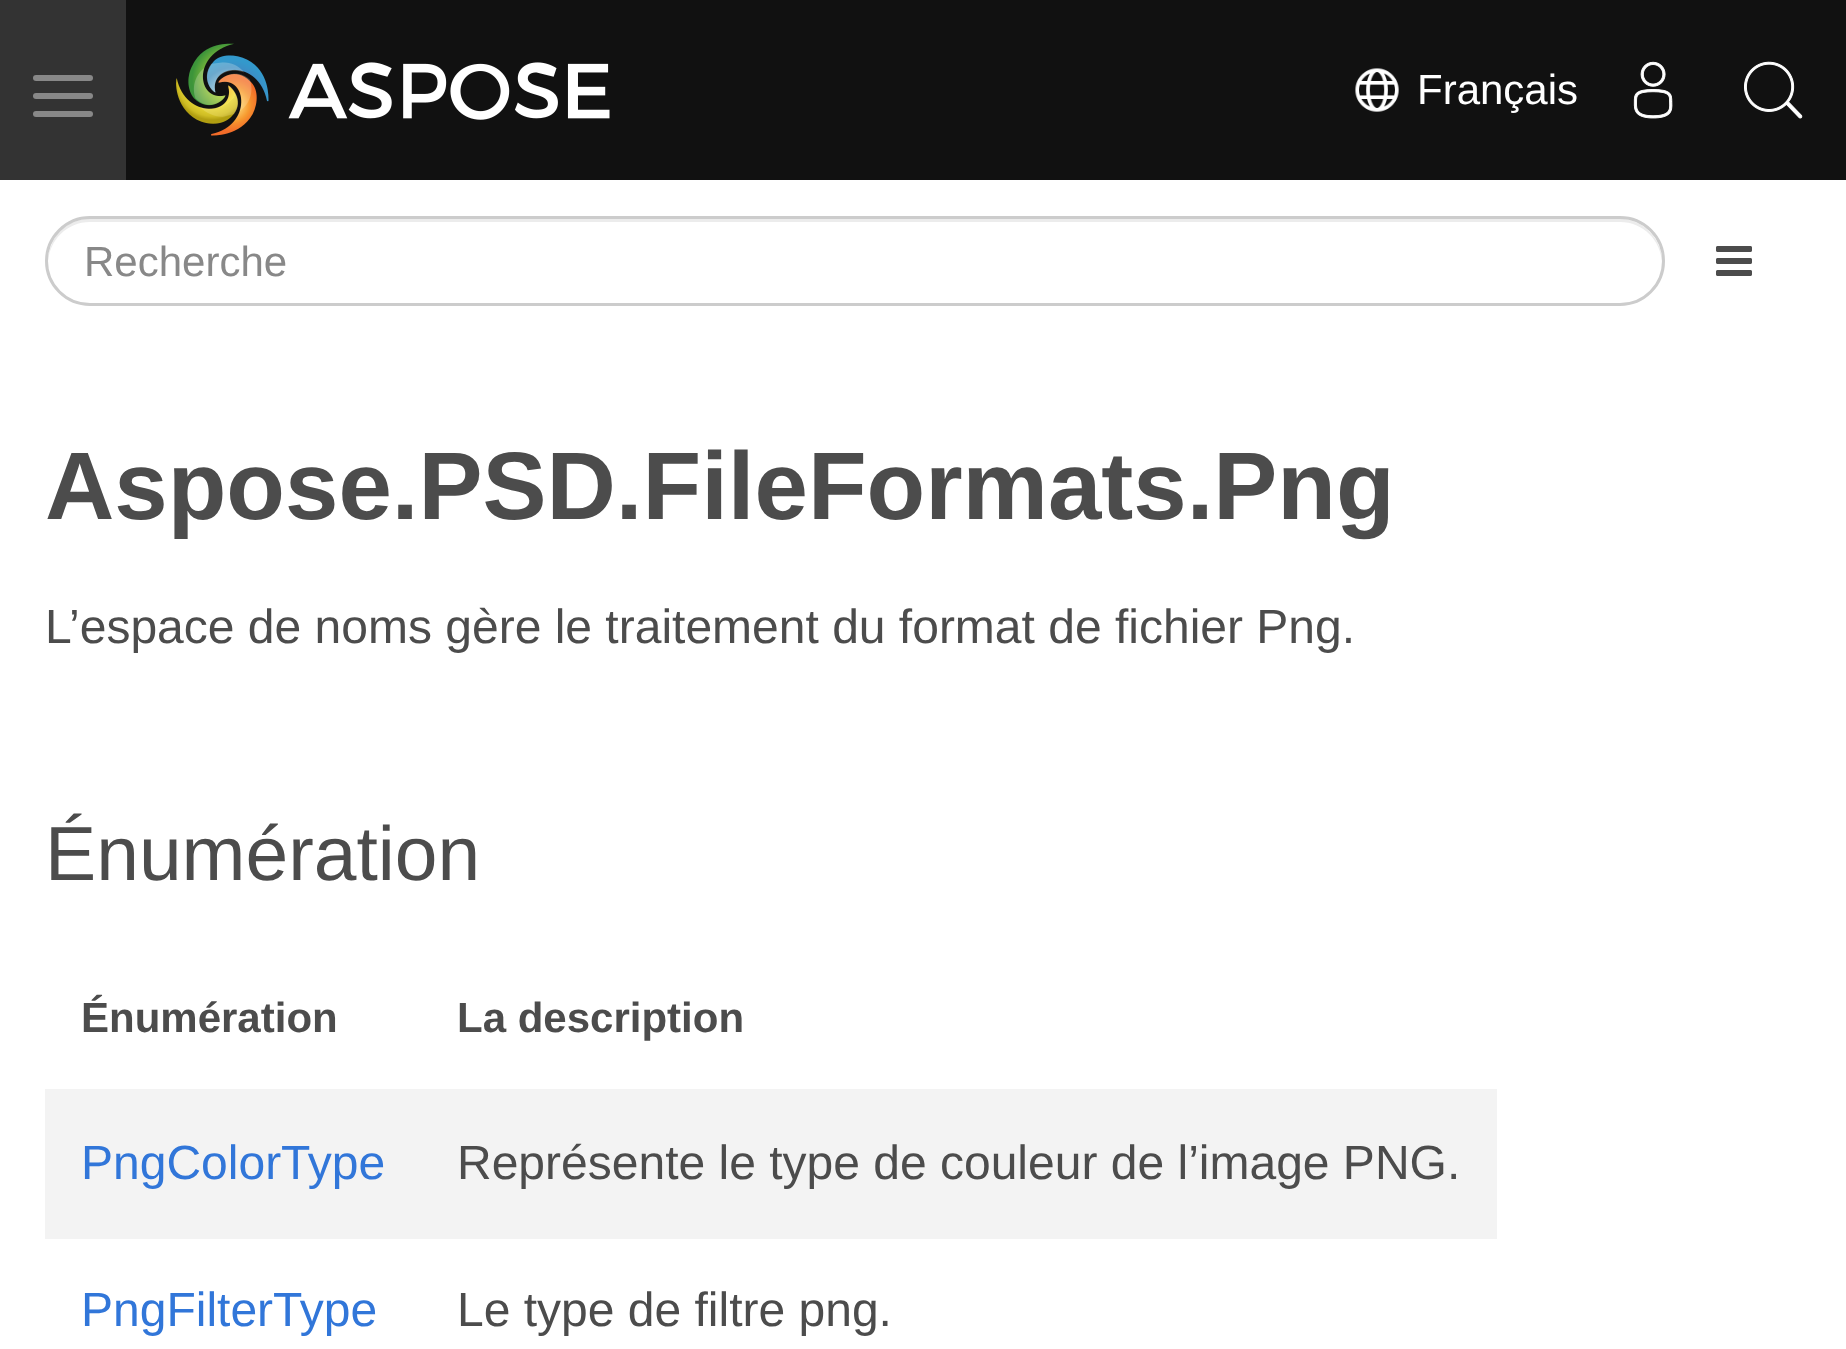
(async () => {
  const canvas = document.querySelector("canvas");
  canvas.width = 1846;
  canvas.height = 1349;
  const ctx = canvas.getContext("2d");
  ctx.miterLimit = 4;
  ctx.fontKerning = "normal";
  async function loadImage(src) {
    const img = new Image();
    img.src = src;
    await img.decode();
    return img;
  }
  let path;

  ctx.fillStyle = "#ffffff";
  ctx.fillRect(0, 0, 1846, 1349);
  ctx.fillStyle = "#111111";
  ctx.fillRect(126, 0, 1720, 180);
  ctx.fillStyle = "#333333";
  ctx.fillRect(0, 0, 126, 180);
  ctx.fillStyle = "#888888";
  ctx.beginPath();
  ctx.roundRect(33, 75, 60, 6, 3);
  ctx.fill();
  ctx.beginPath();
  ctx.roundRect(33, 93, 60, 6, 3);
  ctx.fill();
  ctx.beginPath();
  ctx.roundRect(33, 111, 60, 6, 3);
  ctx.fill();
  ctx.drawImage(await loadImage("img/1.png"), 176, 43, 434, 93);
  ctx.drawImage(await loadImage("img/2.png"), 1355, 68, 44, 44);
  ctx.drawImage(await loadImage("img/3.png"), 1633, 61, 40, 58);
  ctx.drawImage(await loadImage("img/4.png"), 1744, 61, 59, 58);
  ctx.fillStyle = "#ececec";
  path = new Path2D("M90 222H1620C1643 222 1661 240 1662 263C1663 239 1643 219 1620 219H90C79 219 68 223 60 231C52 240 48 251 48 263C49 240 67 222 90 222Z");
  ctx.fill(path);
  ctx.beginPath();
  ctx.roundRect(46.5, 217.5, 1617, 87, 43.5);
  ctx.strokeStyle = "#cccccc";
  ctx.lineWidth = 3;
  ctx.stroke();
  ctx.drawImage(await loadImage("img/5.png"), 1716, 246, 36, 30);
  ctx.fillStyle = "#f3f3f3";
  ctx.fillRect(45, 1089, 1452, 150);
  ctx.font = "42px Liberation Sans";
  ctx.fillStyle = "#ffffff";
  ctx.fillText("Français", 1417, 104);
  ctx.fillStyle = "#888888";
  ctx.fillText("Recherche", 84, 276);
  ctx.font = "bold 96px Liberation Sans";
  ctx.fillStyle = "#4c4c4c";
  ctx.fillText("Aspose.PSD.FileFormats.Png", 45, 519);
  ctx.font = "48px Liberation Sans";
  ctx.fillText("L’espace de noms gère le traitement du format de fichier Png.", 45, 643);
  ctx.font = "76.75px Liberation Sans";
  ctx.fillText("Énumération", 45, 880);
  ctx.font = "bold 42px Liberation Sans";
  ctx.fillText("Énumération", 81, 1032);
  ctx.fillText("La description", 457, 1032);
  ctx.font = "48px Liberation Sans";
  ctx.fillStyle = "#3176d9";
  ctx.fillText("PngColorType", 81, 1179);
  ctx.fillStyle = "#4c4c4c";
  ctx.fillText("Représente le type de couleur de l’image PNG.", 457, 1179);
  ctx.fillStyle = "#3176d9";
  ctx.fillText("PngFilterType", 81, 1326);
  ctx.fillStyle = "#4c4c4c";
  ctx.fillText("Le type de filtre png.", 457, 1326);
})();
